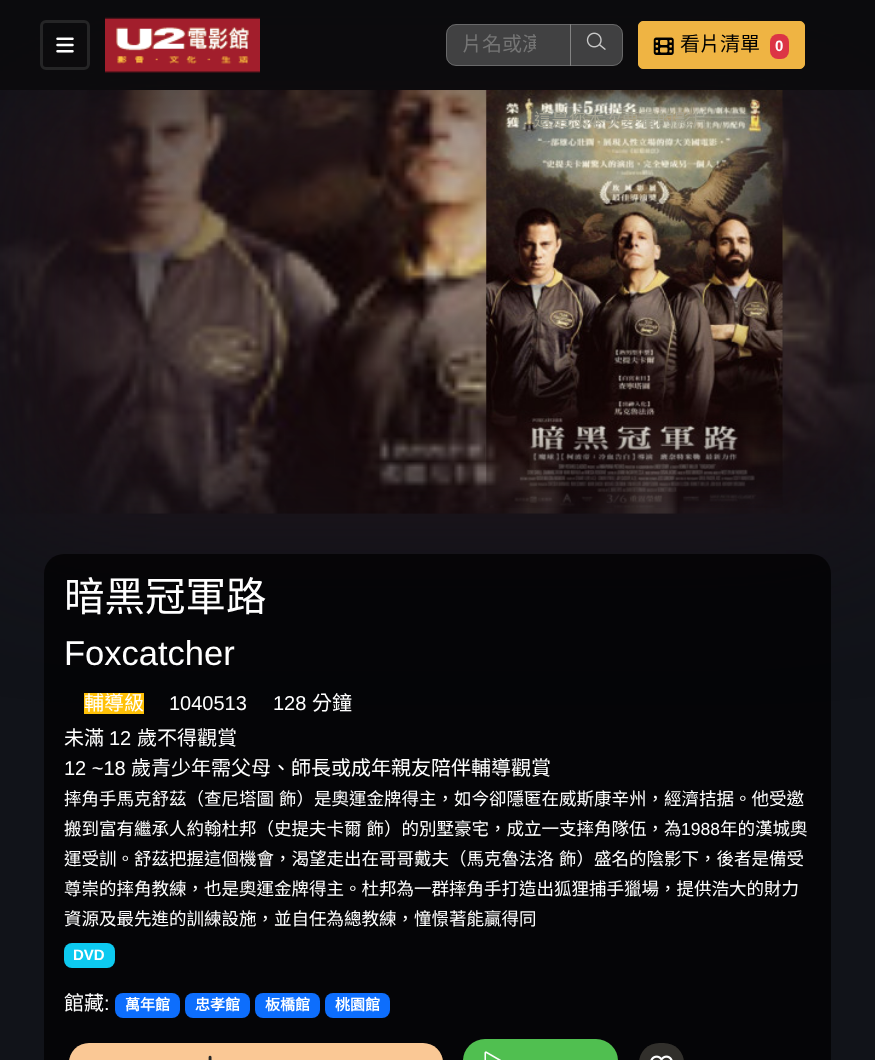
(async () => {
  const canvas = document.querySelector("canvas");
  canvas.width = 875;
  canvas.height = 1060;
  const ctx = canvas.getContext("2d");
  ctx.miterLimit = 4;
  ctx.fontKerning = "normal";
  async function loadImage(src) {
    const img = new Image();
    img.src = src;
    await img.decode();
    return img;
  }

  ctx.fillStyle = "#111319";
  ctx.fillRect(0, 0, 875, 1060);
  ctx.fillStyle = "#20141b";
  ctx.filter = "blur(80px)";
  ctx.beginPath();
  ctx.rect(0, 90, 875, 424);
  ctx.fill();
  ctx.filter = "none";
  ctx.fillStyle = "rgba(10, 10, 10, 0.75)";
  ctx.fillRect(0, 0, 875, 90);
  ctx.beginPath();
  ctx.roundRect(41.5, 21.5, 47, 47, 4.5);
  ctx.strokeStyle = "#252526";
  ctx.lineWidth = 3;
  ctx.stroke();
  ctx.drawImage(await loadImage("img/1.png"), 56, 37, 18, 16);
  ctx.drawImage(await loadImage("img/2.png"), 105, 17, 155, 56);
  ctx.fillStyle = "#414142";
  ctx.beginPath();
  ctx.roundRect(446, 24, 125, 42, [10, 0, 0, 10]);
  ctx.fill();
  ctx.beginPath();
  ctx.roundRect(446.5, 24.5, 124, 41, [9.5, 0, 0, 9.5]);
  ctx.strokeStyle = "rgba(200, 200, 200, 0.3)";
  ctx.lineWidth = 1;
  ctx.stroke();
  ctx.fillStyle = "rgba(100, 100, 100, 0.6)";
  ctx.beginPath();
  ctx.roundRect(570, 24, 53, 42, [0, 10, 10, 0]);
  ctx.fill();
  ctx.beginPath();
  ctx.roundRect(570.5, 24.5, 52, 41, [0, 9.5, 9.5, 0]);
  ctx.stroke();
  ctx.drawImage(await loadImage("img/3.png"), 586, 32, 20, 18);
  ctx.fillStyle = "#efb443";
  ctx.beginPath();
  ctx.roundRect(638.5, 21.5, 166, 47, 4.5);
  ctx.fill();
  ctx.strokeStyle = "#efb443";
  ctx.stroke();
  ctx.drawImage(await loadImage("img/4.png"), 653, 37, 21, 18);
  ctx.fillStyle = "#dc3545";
  ctx.beginPath();
  ctx.roundRect(770, 34, 19, 25, 8);
  ctx.fill();
  ctx.drawImage(await loadImage("img/5.png"), 0, 90, 875, 424);
  ctx.drawImage(await loadImage("img/6.png"), 486, 90, 297, 418);
  ctx.fillStyle = "rgba(0, 0, 0, 0.7)";
  ctx.beginPath();
  ctx.roundRect(44, 554, 787, 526, 20);
  ctx.fill();
  ctx.fillStyle = "#ffc107";
  ctx.fillRect(84, 693, 60, 21);
  ctx.fillStyle = "#0dcaf0";
  ctx.beginPath();
  ctx.roundRect(64, 943, 51, 25, 8);
  ctx.fill();
  ctx.fillStyle = "#0d6efd";
  ctx.beginPath();
  ctx.roundRect(115, 993, 65, 25, 8);
  ctx.fill();
  ctx.beginPath();
  ctx.roundRect(185, 993, 65, 25, 8);
  ctx.fill();
  ctx.beginPath();
  ctx.roundRect(255, 993, 65, 25, 8);
  ctx.fill();
  ctx.beginPath();
  ctx.roundRect(325, 993, 65, 25, 8);
  ctx.fill();
  ctx.fillStyle = "#f9bf83";
  ctx.beginPath();
  ctx.roundRect(69, 1043, 374, 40, 22.5);
  ctx.fill();
  ctx.drawImage(await loadImage("img/7.png"), 208, 1055, 4, 5);
  ctx.fillStyle = "rgba(255, 255, 255, 0.15)";
  ctx.beginPath();
  ctx.roundRect(69, 1043, 374, 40, 22.5);
  ctx.fill();
  ctx.fillStyle = "#32b432";
  ctx.beginPath();
  ctx.roundRect(463, 1039, 155, 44, 22.5);
  ctx.fill();
  ctx.drawImage(await loadImage("img/8.png"), 484, 1051, 17, 9);
  ctx.fillStyle = "rgba(255, 255, 255, 0.15)";
  ctx.beginPath();
  ctx.roundRect(463, 1039, 155, 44, 22.5);
  ctx.fill();
  ctx.fillStyle = "#0d0b06";
  ctx.beginPath();
  ctx.roundRect(639, 1043, 45, 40, 22.5);
  ctx.fill();
  ctx.drawImage(await loadImage("img/9.png"), 650, 1055, 23, 5);
  ctx.fillStyle = "rgba(255, 255, 255, 0.15)";
  ctx.beginPath();
  ctx.roundRect(639, 1043, 45, 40, 22.5);
  ctx.fill();
  ctx.save();
  ctx.beginPath();
  ctx.rect(463, 28, 73, 30);
  ctx.clip();
  ctx.font = "20px Noto Sans CJK TC";
  ctx.fillStyle = "#757575";
  ctx.fillText("片名或演", 462, 51);
  ctx.restore();
  ctx.font = "20px Noto Sans CJK TC";
  ctx.fillStyle = "#000000";
  ctx.fillText("看片清單", 680, 51);
  ctx.font = "bold 15px Liberation Sans";
  ctx.fillStyle = "#ffffff";
  ctx.fillText("0", 775, 51);
  ctx.font = "17.5px Noto Sans CJK TC";
  ctx.fillStyle = "#a6a493";
  ctx.fillText("這是您本次要看的影片", 534, 126);
  ctx.font = "40.5px Noto Sans CJK TC";
  ctx.fillStyle = "#ffffff";
  ctx.fillText("暗黑冠軍路", 64, 611);
  ctx.font = "34.5px Liberation Sans";
  ctx.fillText("Foxcatcher", 64, 665);
  ctx.font = "20px Noto Sans CJK TC";
  ctx.fillText("輔導級", 84, 710);
  ctx.font = "20px Liberation Sans";
  ctx.fillText("1040513", 169, 710);
  ctx.fillText("128", 273, 710);
  ctx.font = "20px Noto Sans CJK TC";
  ctx.fillText("分鐘", 312, 710);
  ctx.fillText("未滿", 64, 745);
  ctx.font = "20px Liberation Sans";
  ctx.fillText("12", 109, 745);
  ctx.font = "20px Noto Sans CJK TC";
  ctx.fillText("歲不得觀賞", 137, 745);
  ctx.font = "20px Liberation Sans";
  ctx.fillText("12 ~18", 64, 775);
  ctx.font = "20px Noto Sans CJK TC";
  ctx.fillText("歲青少年需父母、師長或成年親友陪伴輔導觀賞", 131, 775);
  ctx.wordSpacing = "1px";
  ctx.font = "17.5px Noto Sans CJK TC";
  ctx.fillText("摔角手馬克舒茲（查尼塔圖 飾）是奧運金牌得主，如今卻隱匿在威斯康辛州，經濟拮据。他受邀", 64, 805);
  ctx.fillText("搬到富有繼承人約翰杜邦（史提夫卡爾 飾）的別墅豪宅，成立一支摔角隊伍，為", 64, 835);
  ctx.wordSpacing = "0px";
  ctx.font = "17.5px Liberation Sans";
  ctx.fillText("1988", 681, 835);
  ctx.font = "17.5px Noto Sans CJK TC";
  ctx.fillText("年的漢城奧", 720, 835);
  ctx.wordSpacing = "1px";
  ctx.fillText("運受訓。舒茲把握這個機會，渴望走出在哥哥戴夫（馬克魯法洛 飾）盛名的陰影下，後者是備受", 64, 865);
  ctx.wordSpacing = "0px";
  ctx.fillText("尊崇的摔角教練，也是奧運金牌得主。杜邦為一群摔角手打造出狐狸捕手獵場，提供浩大的財力", 64, 895);
  ctx.fillText("資源及最先進的訓練設施，並自任為總教練，憧憬著能贏得同", 64, 925);
  ctx.font = "bold 15px Liberation Sans";
  ctx.fillText("DVD", 73, 960);
  ctx.font = "20px Noto Sans CJK TC";
  ctx.fillText("館藏", 64, 1010);
  ctx.font = "20px Liberation Sans";
  ctx.fillText(":", 104, 1010);
  ctx.font = "bold 15px Noto Sans CJK TC";
  for (const [text, x, y] of [
    ["萬年館", 125, 1010],
    ["忠孝館", 195, 1010],
    ["板橋館", 265, 1010],
    ["桃園館", 335, 1010],
  ]) {
    ctx.fillText(text, x, y);
  }
})();
